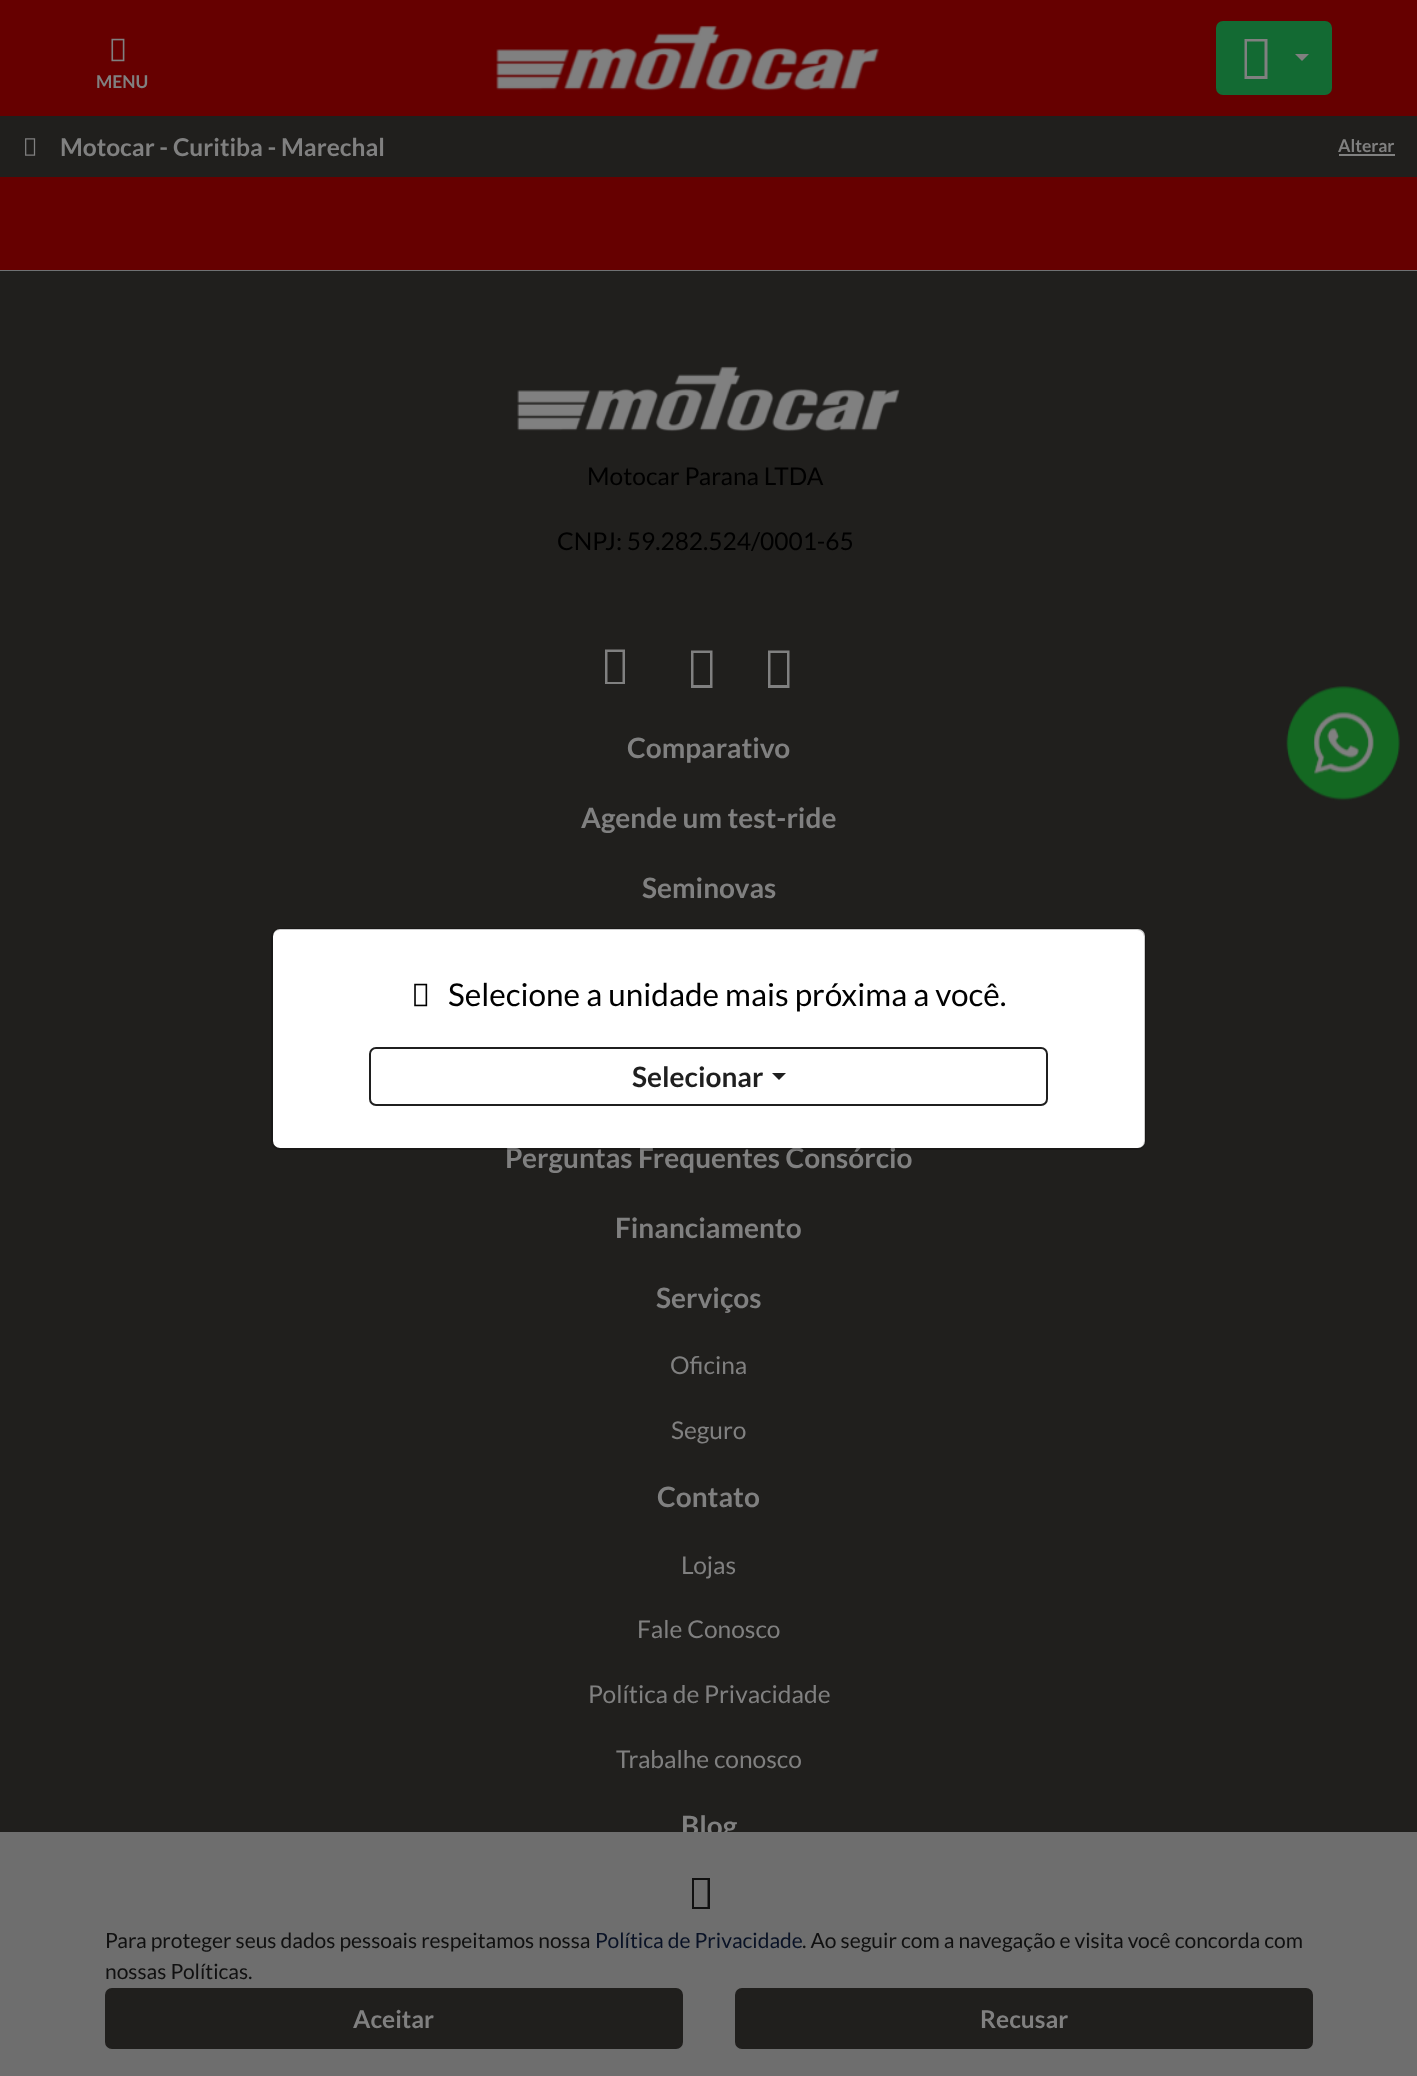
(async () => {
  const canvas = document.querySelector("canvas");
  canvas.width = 1417;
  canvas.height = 2076;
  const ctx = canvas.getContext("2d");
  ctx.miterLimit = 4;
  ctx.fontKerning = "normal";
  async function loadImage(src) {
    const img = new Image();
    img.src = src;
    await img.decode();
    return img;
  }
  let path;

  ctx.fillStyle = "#660000";
  ctx.fillRect(0, 0, 1417, 2076);
  ctx.drawImage(await loadImage("img/1.png"), 111, 38, 14, 24);
  ctx.drawImage(await loadImage("img/2.png"), 496, 25, 384, 66);
  ctx.fillStyle = "#136a33";
  ctx.beginPath();
  ctx.roundRect(1217, 22, 114, 72, 6);
  ctx.fill();
  ctx.strokeStyle = "#136a33";
  ctx.lineWidth = 2;
  ctx.stroke();
  ctx.fillStyle = "#808080";
  path = new Path2D("M1244.5 79V39H1267.5V79ZM1247 76H1264.5V41.5H1247Z");
  ctx.fill(path);
  path = new Path2D("M1295 54H1309L1302 61Z");
  ctx.fill(path);
  ctx.fillStyle = "#201f1d";
  ctx.fillRect(0, 116, 1417, 61);
  ctx.drawImage(await loadImage("img/3.png"), 25, 138, 11, 18);
  for (const [x, y, w, h, color] of [
    [1339, 154, 56, 2, "#808080"],
    [0, 270, 1417, 1, "#6f7173"],
    [0, 271, 1417, 1561, "#201f1d"],
  ]) {
    ctx.fillStyle = color;
    ctx.fillRect(x, y, w, h);
  }
  ctx.drawImage(await loadImage("img/4.png"), 517, 366, 383, 66);
  ctx.fillStyle = "#808080";
  path = new Path2D("M605 684V649.5H625V684ZM607.5 682H622.5V652H607.5Z");
  ctx.fill(path);
  path = new Path2D("M691 688V650.5H712.5V688ZM693.5 685H710V653H693.5Z");
  ctx.fill(path);
  path = new Path2D("M768 688V650.5H789.5V688ZM770.5 685H787V653H770.5Z");
  ctx.fill(path);
  ctx.drawImage(await loadImage("img/5.png"), 1286, 686, 114, 115);
  ctx.font = "bold 17.5px Lato";
  ctx.fillText("MENU", 96, 88);
  ctx.font = "bold 24.5px Lato";
  ctx.fillText("Motocar - Curitiba - Marechal", 60, 156);
  ctx.font = "bold 17.5px Lato";
  ctx.fillText("Alterar", 1338, 152);
  ctx.font = "24.5px Lato";
  ctx.fillStyle = "#000000";
  ctx.fillText("Motocar Parana LTDA", 587, 485);
  ctx.fillText("CNPJ: 59.282.524/0001-65", 557, 550);
  ctx.font = "bold 28px Lato";
  ctx.fillStyle = "#808080";
  for (const [text, x, y] of [
    ["Comparativo", 627, 758],
    ["Agende um test-ride", 581, 828],
    ["Seminovas", 642, 898],
    ["Perguntas Frequentes Consórcio", 505, 1168],
    ["Financiamento", 615, 1238],
    ["Serviços", 656, 1308],
  ]) {
    ctx.fillText(text, x, y);
  }
  ctx.font = "24.5px Lato";
  ctx.fillText("Oficina", 670, 1374);
  ctx.fillText("Seguro", 671, 1439);
  ctx.font = "bold 28px Lato";
  ctx.fillText("Contato", 657, 1507);
  ctx.font = "24.5px Lato";
  for (const [text, x, y] of [
    ["Lojas", 681, 1574],
    ["Fale Conosco", 637, 1638],
    ["Política de Privacidade", 588, 1703],
    ["Trabalhe conosco", 616, 1768],
  ]) {
    ctx.fillText(text, x, y);
  }
  ctx.font = "bold 28px Lato";
  ctx.fillText("Blog", 681, 1836);
  ctx.fillStyle = "#ffffff";
  ctx.beginPath();
  ctx.roundRect(273, 929, 872, 219, 7);
  ctx.fill();
  ctx.beginPath();
  ctx.roundRect(272, 929, 873, 220, 8);
  ctx.strokeStyle = "rgba(0, 0, 0, 0.2)";
  ctx.stroke();
  ctx.drawImage(await loadImage("img/6.png"), 414, 983, 14, 24);
  ctx.font = "31.5px Lato";
  ctx.fillStyle = "#000000";
  ctx.fillText("Selecione a unidade mais próxima a você.", 448, 1006);
  ctx.beginPath();
  ctx.roundRect(370, 1048, 677, 57, 6);
  ctx.strokeStyle = "#1f1f1f";
  ctx.stroke();
  ctx.font = "bold 28px Lato";
  ctx.fillStyle = "#1f1f1f";
  ctx.fillText("Selecionar", 632, 1087);
  path = new Path2D("M772 1073H786L779 1080Z");
  ctx.fill(path);
  ctx.fillStyle = "#6e6e6e";
  ctx.fillRect(0, 1832, 1417, 244);
  ctx.fillStyle = "#101010";
  path = new Path2D("M692 1909V1878H710V1909ZM694 1907H707.5V1880H694Z");
  ctx.fill(path);
  ctx.font = "21px Lato";
  ctx.fillText("Para proteger seus dados pessoais respeitamos nossa", 105, 1948);
  ctx.fillStyle = "#091226";
  ctx.fillText("Política de Privacidade", 595, 1948);
  ctx.fillStyle = "#101010";
  ctx.fillText(". Ao seguir com a navegação e visita você concorda com", 802, 1948);
  ctx.fillText("nossas Políticas.", 105, 1979);
  ctx.fillStyle = "#201f1d";
  ctx.beginPath();
  ctx.roundRect(106, 1989, 576, 59, 6);
  ctx.fill();
  ctx.strokeStyle = "#201f1d";
  ctx.stroke();
  ctx.font = "bold 24.5px Lato";
  ctx.fillStyle = "#808080";
  ctx.fillText("Aceitar", 353, 2028);
  ctx.fillStyle = "#201f1d";
  ctx.beginPath();
  ctx.roundRect(736, 1989, 576, 59, 6);
  ctx.fill();
  ctx.stroke();
  ctx.fillStyle = "#808080";
  ctx.fillText("Recusar", 980, 2028);
})();
